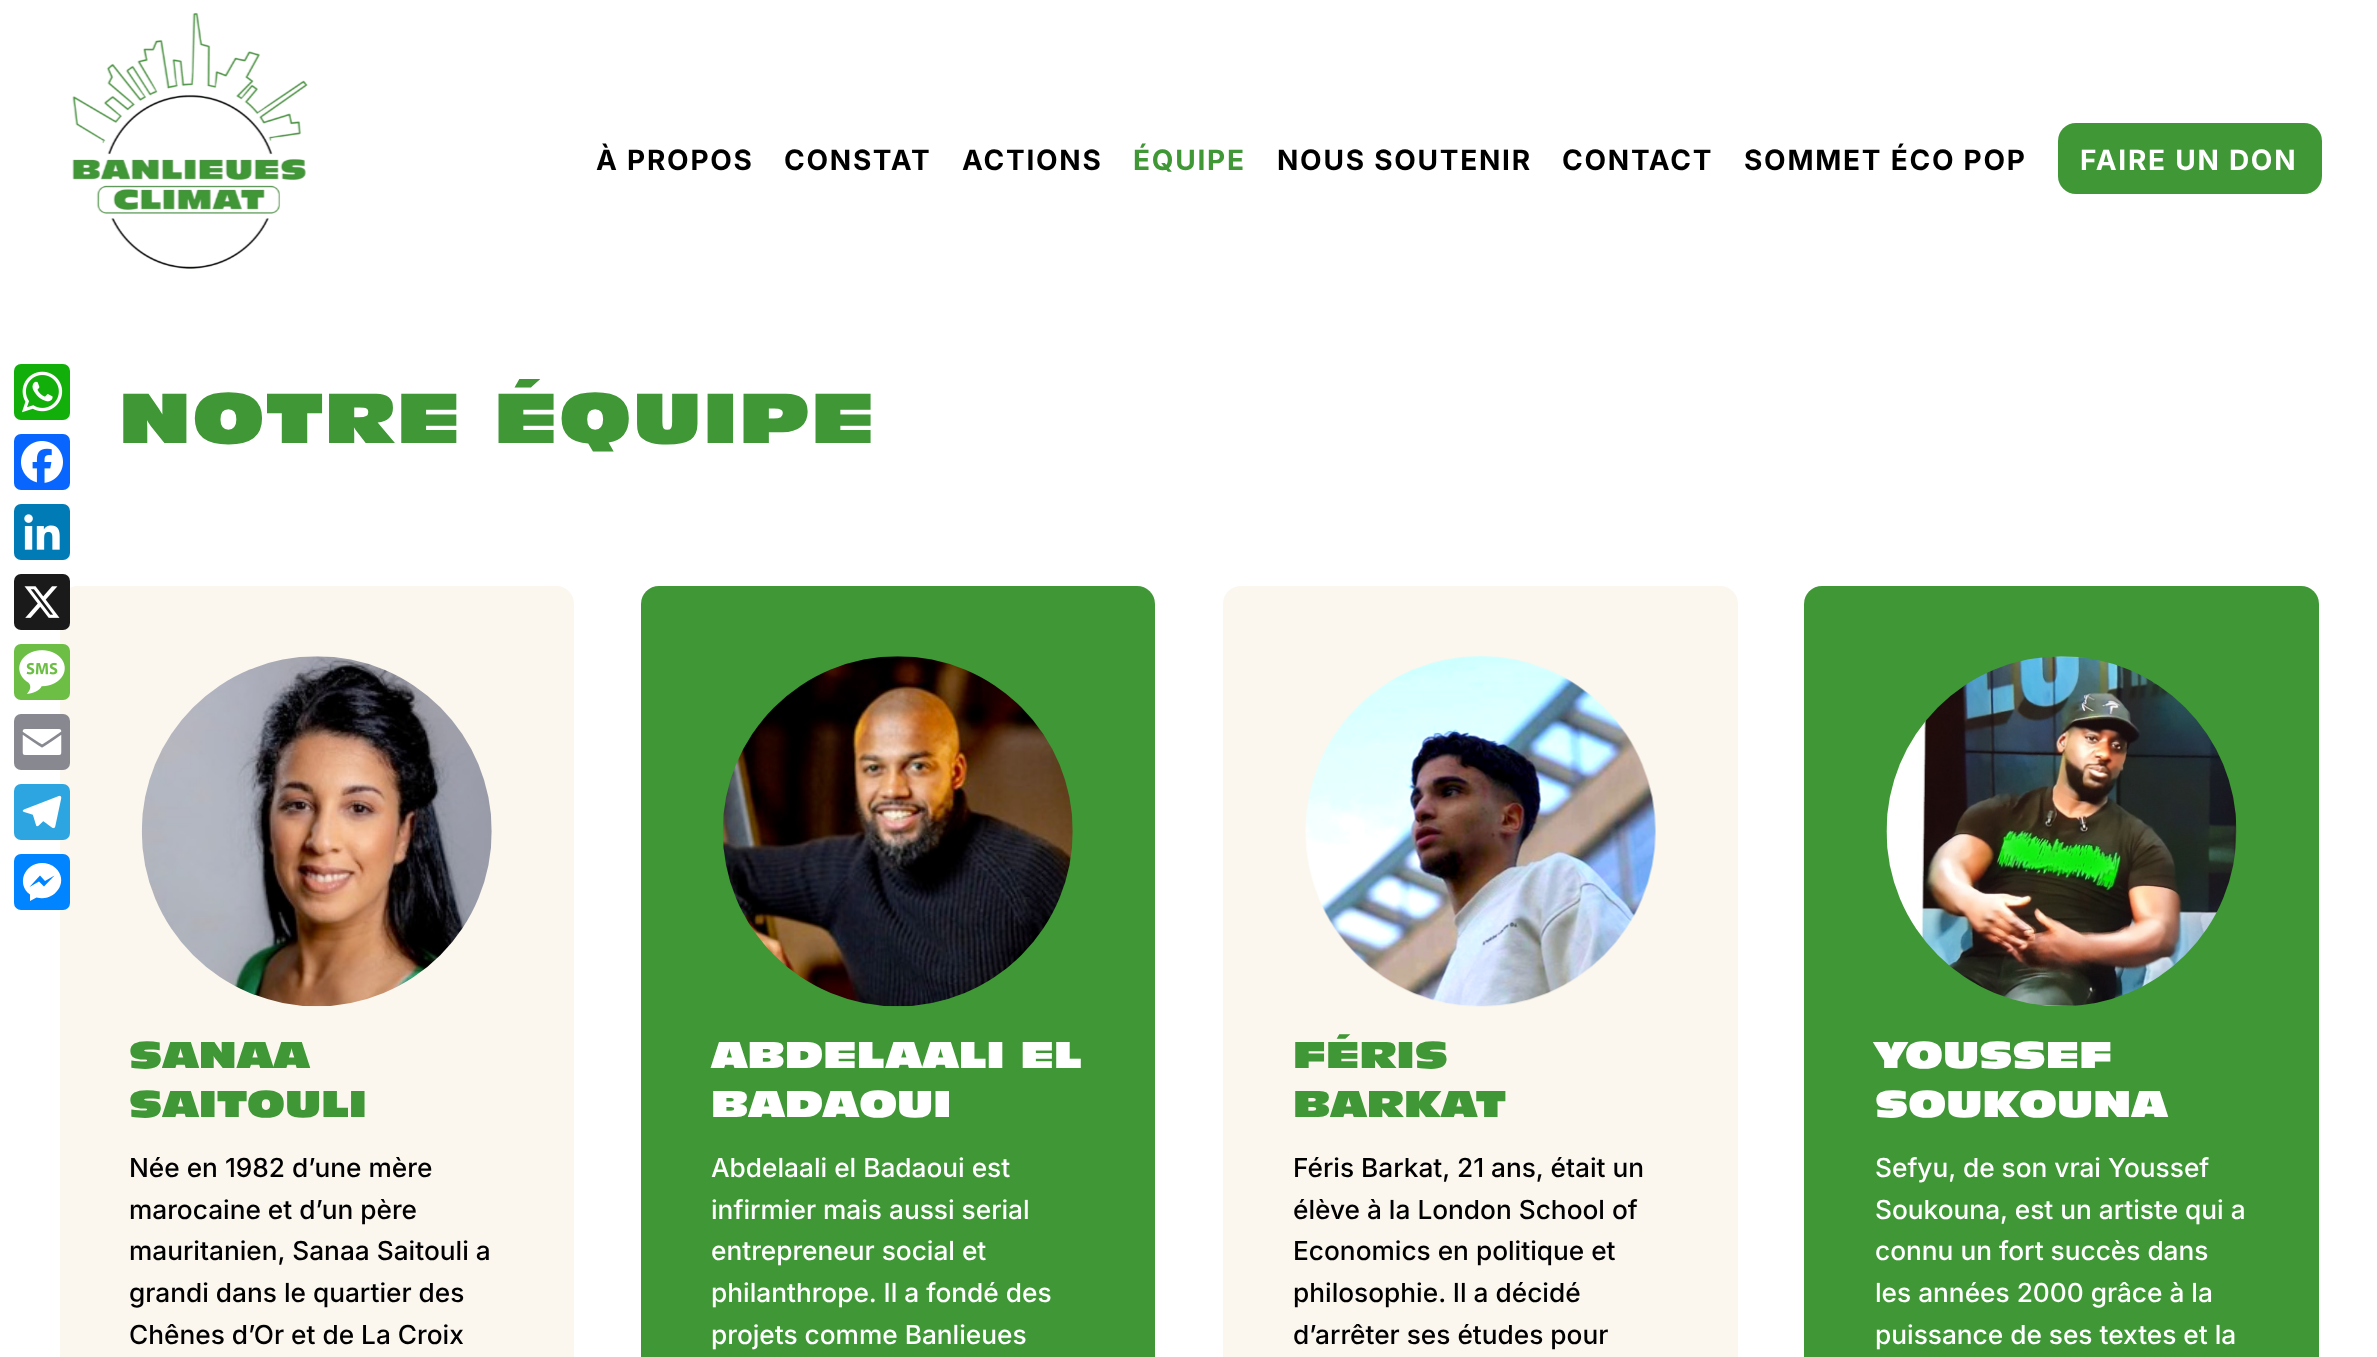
(async () => {
  const canvas = document.querySelector("canvas");
  canvas.width = 2377;
  canvas.height = 1357;
  const ctx = canvas.getContext("2d");
  ctx.miterLimit = 4;
  ctx.fontKerning = "normal";
  async function loadImage(src) {
    const img = new Image();
    img.src = src;
    await img.decode();
    return img;
  }
  let path;

  ctx.fillStyle = "#ffffff";
  ctx.fillRect(0, 0, 2377, 1357);
  ctx.fillStyle = "#12af0a";
  ctx.beginPath();
  ctx.roundRect(14, 364, 56, 56, 7);
  ctx.fill();
  ctx.drawImage(await loadImage("img/1.png"), 22, 371, 41, 42);
  ctx.fillStyle = "#0866ff";
  ctx.beginPath();
  ctx.roundRect(14, 434, 56, 56, 7);
  ctx.fill();
  ctx.drawImage(await loadImage("img/2.png"), 21, 441, 42, 42);
  ctx.fillStyle = "#007bb5";
  ctx.beginPath();
  ctx.roundRect(14, 504, 56, 56, 7);
  ctx.fill();
  ctx.drawImage(await loadImage("img/3.png"), 24, 514, 36, 36);
  ctx.fillStyle = "#fbf7ee";
  ctx.beginPath();
  ctx.roundRect(60, 586, 514, 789, 18);
  ctx.fill();
  ctx.fillStyle = "#1a1a1a";
  ctx.beginPath();
  ctx.roundRect(14, 574, 56, 56, 7);
  ctx.fill();
  ctx.drawImage(await loadImage("img/4.png"), 24, 586, 36, 32);
  ctx.fillStyle = "#6cbe45";
  ctx.beginPath();
  ctx.roundRect(14, 644, 56, 56, 7);
  ctx.fill();
  ctx.drawImage(await loadImage("img/5.png"), 19, 650, 46, 44);
  ctx.fillStyle = "#888990";
  ctx.beginPath();
  ctx.roundRect(14, 714, 56, 56, 7);
  ctx.fill();
  ctx.drawImage(await loadImage("img/6.png"), 22, 729, 40, 26);
  ctx.fillStyle = "#2ca5e0";
  ctx.beginPath();
  ctx.roundRect(14, 784, 56, 56, 7);
  ctx.fill();
  ctx.drawImage(await loadImage("img/7.png"), 22, 795, 40, 34);
  ctx.fillStyle = "#0084ff";
  ctx.beginPath();
  ctx.roundRect(14, 854, 56, 56, 7);
  ctx.fill();
  ctx.fillStyle = "#ffffff";
  path = new Path2D("M42 863C24.5 863 16 884 30 894.5V901L36.5 897.5C54.5 902.5 70 881.5 55.5 868C52 864.5 47 863 42 863M44 886.5L39 881.5L29.5 887L40 875.5L45 881L54.5 875.5Z");
  ctx.fill(path);
  ctx.drawImage(await loadImage("img/8.png"), 72, 12, 236, 257);
  ctx.fillStyle = "#3f9736";
  ctx.beginPath();
  ctx.roundRect(2058, 123, 264, 71, 18);
  ctx.fill();
  ctx.drawImage(await loadImage("img/9.png"), 141, 656, 351, 351);
  ctx.beginPath();
  ctx.roundRect(641, 586, 514, 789, 18);
  ctx.fill();
  ctx.drawImage(await loadImage("img/10.png"), 722, 656, 351, 351);
  ctx.fillStyle = "#fbf7ee";
  ctx.beginPath();
  ctx.roundRect(1223, 586, 515, 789, 18);
  ctx.fill();
  ctx.drawImage(await loadImage("img/11.png"), 1305, 656, 351, 351);
  ctx.fillStyle = "#3f9736";
  ctx.beginPath();
  ctx.roundRect(1804, 586, 515, 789, 18);
  ctx.fill();
  ctx.drawImage(await loadImage("img/12.png"), 1886, 656, 351, 351);
  ctx.letterSpacing = "1.75px";
  ctx.font = "bold 28px Inter";
  ctx.fillStyle = "#000000";
  for (const [text, x, y] of [
    ["À PROPOS", 596, 170],
    ["CONSTAT", 784, 170],
    ["ACTIONS", 962, 170],
  ]) {
    ctx.fillText(text, x, y);
  }
  ctx.fillStyle = "#3f9736";
  ctx.fillText("ÉQUIPE", 1133, 170);
  ctx.fillStyle = "#000000";
  for (const [text, x, y] of [
    ["NOUS SOUTENIR", 1277, 170],
    ["CONTACT", 1562, 170],
    ["SOMMET ÉCO POP", 1744, 170],
  ]) {
    ctx.fillText(text, x, y);
  }
  ctx.fillStyle = "#ffffff";
  ctx.fillText("FAIRE UN DON", 2080, 170);
  ctx.font = "66.25px 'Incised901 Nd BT'";
  ctx.fillStyle = "#3f9736";
  ctx.fillText("NOTRE ÉQUIPE", 119, 443);
  ctx.letterSpacing = "0px";
  ctx.font = "35px 'Incised901 Nd BT'";
  ctx.fillText("SANAA", 129, 1068);
  ctx.fillText("SAITOULI", 129, 1117);
  ctx.font = "500 26.25px Inter";
  ctx.fillStyle = "#000000";
  for (const [text, x, y] of [
    ["Née en 1982 d’une mère", 129, 1177],
    ["marocaine et d’un père", 129, 1219],
    ["mauritanien, Sanaa Saitouli a", 129, 1260],
    ["grandi dans le quartier des", 129, 1302],
    ["Chênes d’Or et de La Croix", 129, 1344],
  ]) {
    ctx.fillText(text, x, y);
  }
  ctx.font = "35px 'Incised901 Nd BT'";
  ctx.fillStyle = "#ffffff";
  ctx.fillText("ABDELAALI EL", 711, 1068);
  ctx.fillText("BADAOUI", 711, 1117);
  ctx.font = "500 26.25px Inter";
  for (const [text, x, y] of [
    ["Abdelaali el Badaoui est", 711, 1177],
    ["infirmier mais aussi serial", 711, 1219],
    ["entrepreneur social et", 711, 1260],
    ["philanthrope. Il a fondé des", 711, 1302],
    ["projets comme Banlieues", 711, 1344],
  ]) {
    ctx.fillText(text, x, y);
  }
  ctx.font = "35px 'Incised901 Nd BT'";
  ctx.fillStyle = "#3f9736";
  ctx.fillText("FÉRIS", 1293, 1068);
  ctx.fillText("BARKAT", 1293, 1117);
  ctx.font = "500 26.25px Inter";
  ctx.fillStyle = "#000000";
  for (const [text, x, y] of [
    ["Féris Barkat, 21 ans, était un", 1293, 1177],
    ["élève à la London School of", 1293, 1219],
    ["Economics en politique et", 1293, 1260],
    ["philosophie. Il a décidé", 1293, 1302],
    ["d’arrêter ses études pour", 1293, 1344],
  ]) {
    ctx.fillText(text, x, y);
  }
  ctx.font = "35px 'Incised901 Nd BT'";
  ctx.fillStyle = "#ffffff";
  ctx.fillText("YOUSSEF", 1875, 1068);
  ctx.fillText("SOUKOUNA", 1875, 1117);
  ctx.font = "500 26.25px Inter";
  for (const [text, x, y] of [
    ["Sefyu, de son vrai Youssef", 1875, 1177],
    ["Soukouna, est un artiste qui a", 1875, 1219],
    ["connu un fort succès dans", 1875, 1260],
    ["les années 2000 grâce à la", 1875, 1302],
    ["puissance de ses textes et la", 1875, 1344],
  ]) {
    ctx.fillText(text, x, y);
  }
})();
